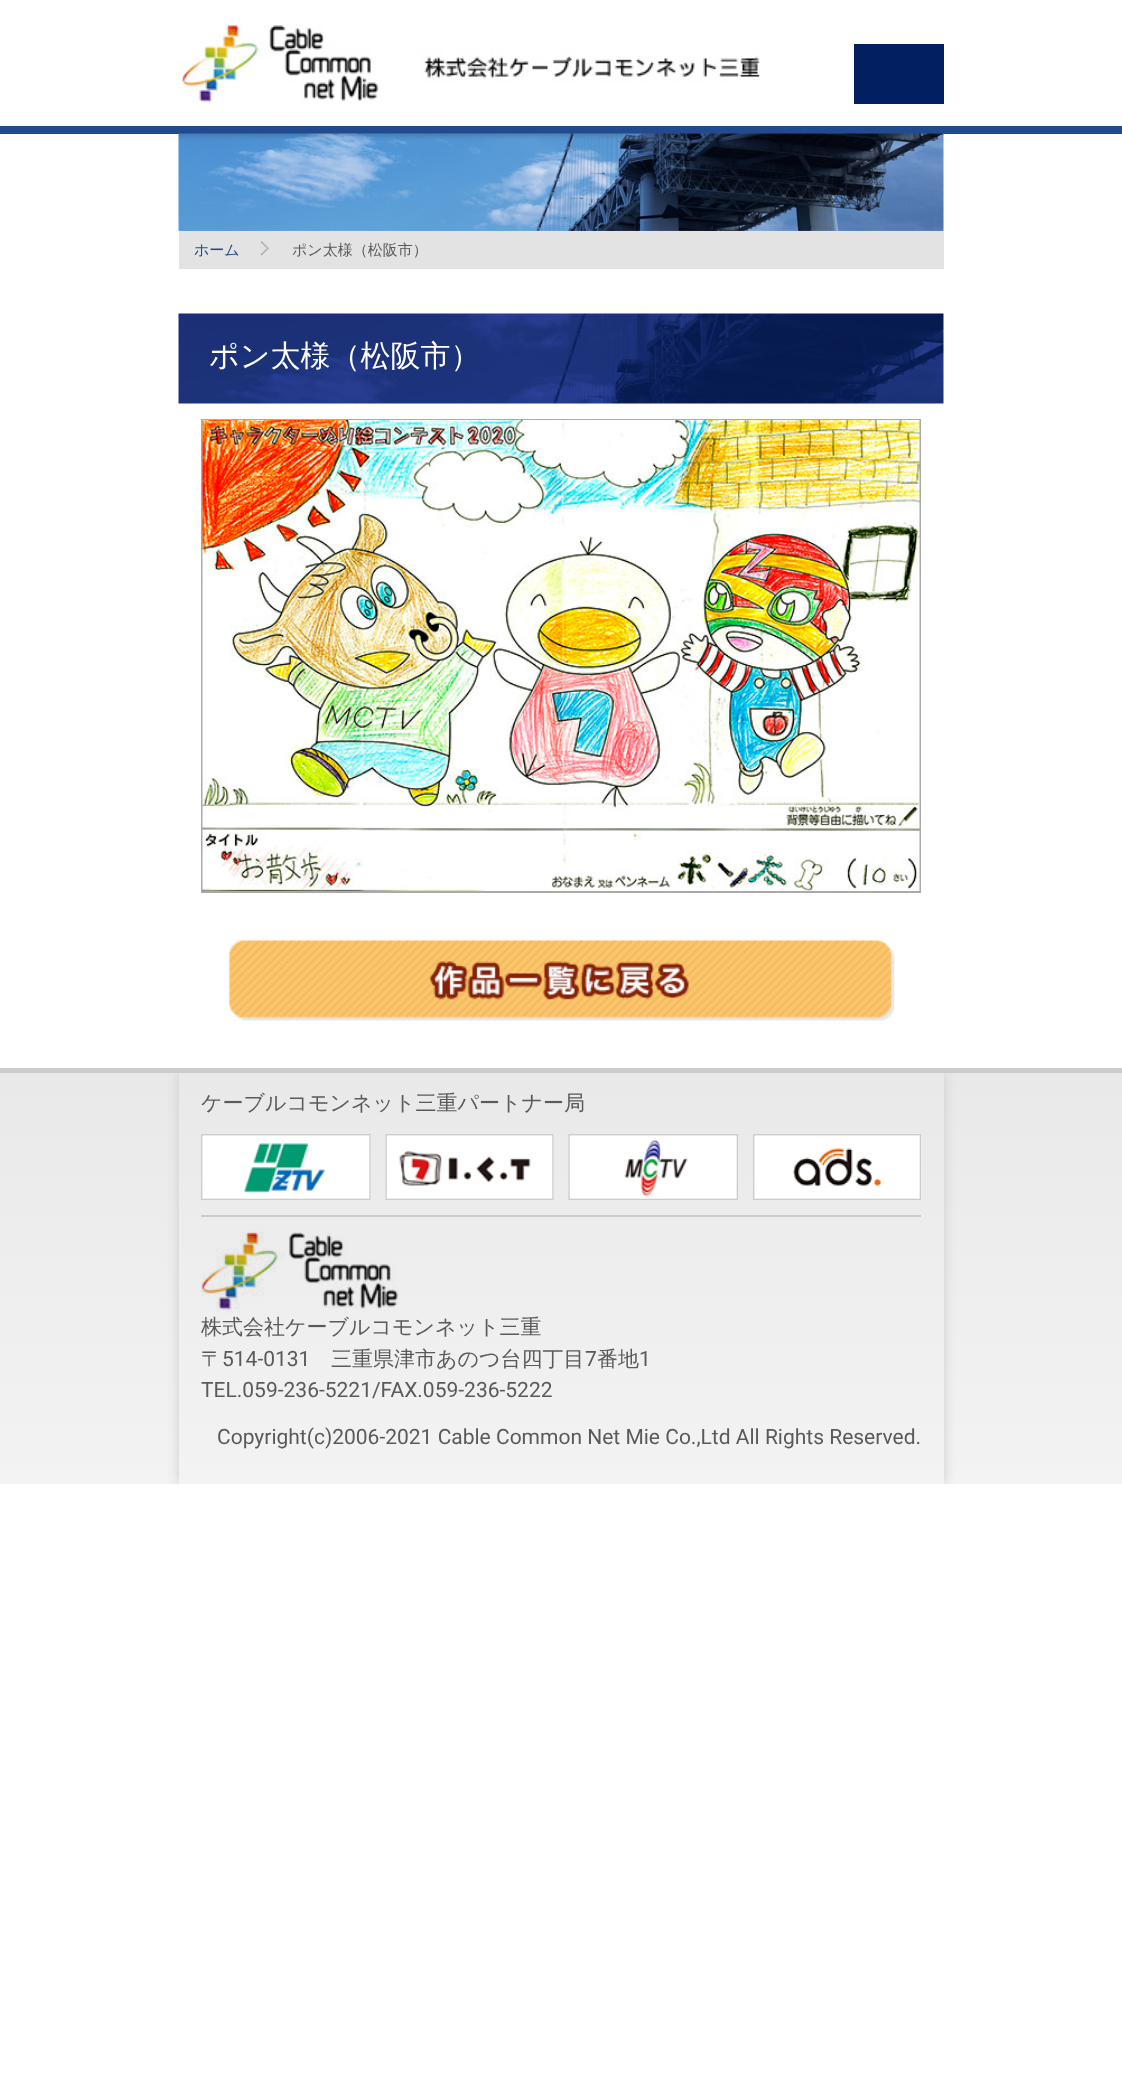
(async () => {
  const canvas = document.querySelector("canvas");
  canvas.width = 1122;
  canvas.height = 2090;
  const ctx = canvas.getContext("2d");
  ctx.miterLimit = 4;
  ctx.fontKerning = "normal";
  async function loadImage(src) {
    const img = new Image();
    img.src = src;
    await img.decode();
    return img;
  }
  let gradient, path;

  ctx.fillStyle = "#ffffff";
  ctx.fillRect(0, 0, 1122, 2090);
  ctx.drawImage(await loadImage("img/1.png"), 178, 22, 582, 82);
  ctx.fillStyle = "#021f62";
  ctx.fillRect(854, 44, 90, 60);
  ctx.fillStyle = "#224a8e";
  ctx.fillRect(0, 126, 1122, 8);
  ctx.drawImage(await loadImage("img/2.png"), 178, 133, 766, 98);
  ctx.fillStyle = "#e3e3e3";
  ctx.fillRect(179, 231, 765, 38);
  ctx.drawImage(await loadImage("img/3.png"), 261, 241, 8, 14);
  ctx.drawImage(await loadImage("img/4.png"), 178, 313, 766, 91);
  ctx.strokeStyle = "#aaaaaa";
  ctx.lineWidth = 2;
  ctx.strokeRect(202, 420, 718, 472);
  ctx.drawImage(await loadImage("img/5.png"), 202, 420, 718, 471);
  ctx.drawImage(await loadImage("img/6.png"), 228, 940, 667, 81);
  gradient = ctx.createLinearGradient(561, 1073, 561, 1484);
  gradient.addColorStop(0, "#e9e9e9");
  gradient.addColorStop(1, "#f3f3f3");
  ctx.fillStyle = gradient;
  ctx.fillRect(0, 1073, 1122, 411);
  ctx.fillStyle = "#cccccc";
  ctx.fillRect(0, 1068, 1122, 5);
  ctx.save();
  ctx.beginPath();
  ctx.rect(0, 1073, 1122, 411);
  ctx.clip();
  path = new Path2D("M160 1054H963V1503H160ZM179 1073H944V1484H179Z");
  ctx.clip(path, "evenodd");
  ctx.filter = "blur(6px)";
  ctx.beginPath();
  ctx.rect(179, 1073, 765, 411);
  ctx.fill();
  ctx.filter = "none";
  ctx.restore();
  ctx.fillRect(201, 1215, 720, 2);
  ctx.drawImage(await loadImage("img/7.png"), 201, 1134, 170, 66);
  ctx.drawImage(await loadImage("img/8.png"), 385, 1134, 169, 66);
  ctx.drawImage(await loadImage("img/9.png"), 568, 1134, 170, 66);
  ctx.drawImage(await loadImage("img/10.png"), 753, 1134, 168, 66);
  ctx.drawImage(await loadImage("img/11.png"), 201, 1231, 198, 82);
  ctx.font = "500 15px WenQuanYi Zen Hei";
  ctx.fillStyle = "#224a8e";
  ctx.fillText("ホーム", 194, 255);
  ctx.fillStyle = "#5a5a5a";
  ctx.fillText("ポン太様（松阪市）", 292, 255);
  ctx.font = "500 30px WenQuanYi Zen Hei";
  ctx.fillStyle = "#ffffff";
  ctx.fillText("ポン太様（松阪市）", 209, 366);
  ctx.font = "500 21px WenQuanYi Zen Hei";
  ctx.fillStyle = "#5a5a5a";
  for (const [text, x, y] of [
    ["ケーブルコモンネット三重パートナー局", 201, 1110],
    ["株式会社ケーブルコモンネット三重", 201, 1334],
    ["〒", 201, 1366],
  ]) {
    ctx.fillText(text, x, y);
  }
  ctx.font = "21px Roboto";
  ctx.fillText("514-0131", 222, 1366);
  ctx.font = "500 21px WenQuanYi Zen Hei";
  ctx.fillText("三重県津市あのつ台四丁目", 331, 1366);
  ctx.font = "21px Roboto";
  ctx.fillText("7", 585, 1366);
  ctx.font = "500 21px WenQuanYi Zen Hei";
  ctx.fillText("番地", 597, 1366);
  ctx.font = "21px Roboto";
  for (const [text, x, y] of [
    ["1", 639, 1366],
    ["TEL.059-236-5221/FAX.059-236-5222", 201, 1397],
    ["Copyright(c)2006-2021 Cable Common Net Mie Co.,Ltd All Rights Reserved.", 217, 1444],
  ]) {
    ctx.fillText(text, x, y);
  }
})();
